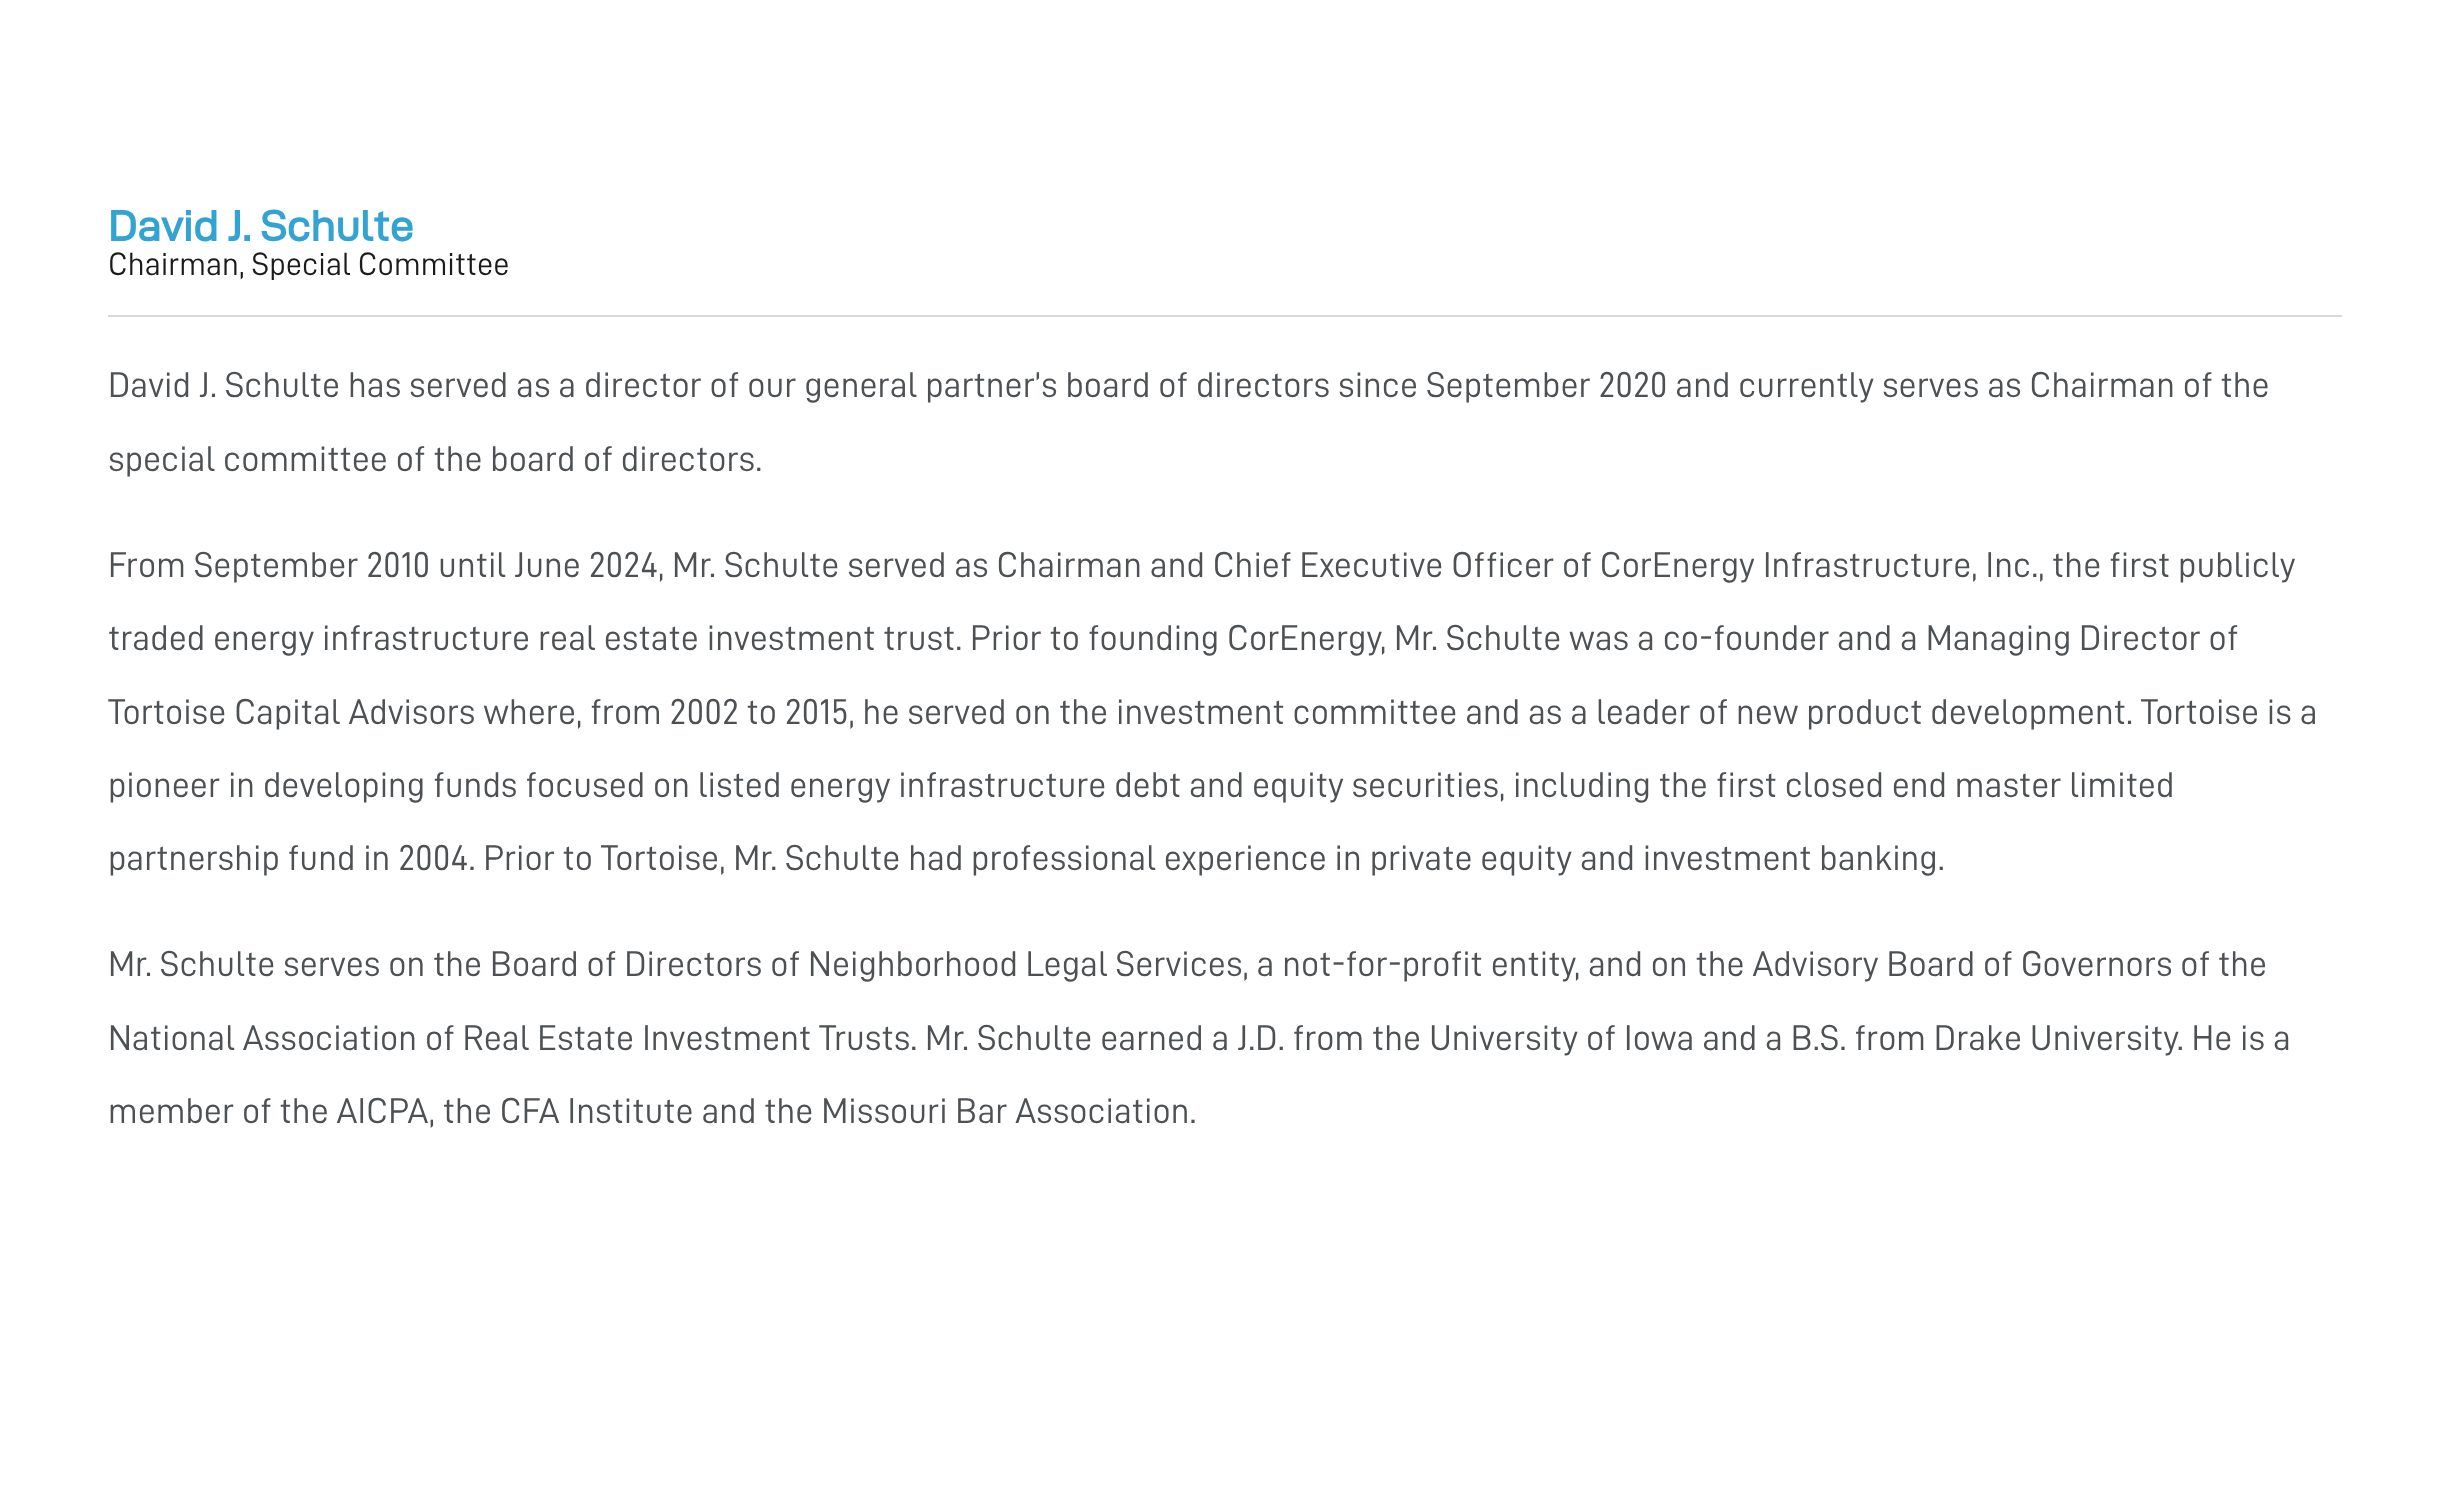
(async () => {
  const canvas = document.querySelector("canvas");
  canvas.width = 2449;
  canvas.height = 1486;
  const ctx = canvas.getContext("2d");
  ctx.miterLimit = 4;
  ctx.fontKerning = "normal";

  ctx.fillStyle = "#ffffff";
  ctx.fillRect(0, 0, 2449, 1486);
  ctx.fillStyle = "#d9d9d9";
  ctx.fillRect(108, 315, 2234, 2);
  ctx.font = "bold 43.25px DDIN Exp";
  ctx.fillStyle = "#33a4d1";
  ctx.fillText("David J. Schulte", 108, 241);
  ctx.font = "32.4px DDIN";
  ctx.fillStyle = "#1b1b1b";
  ctx.fillText("Chairman, Special Committee", 108, 275);
  ctx.font = "36px DDIN";
  ctx.fillStyle = "#4d5154";
  for (const [text, x, y] of [
    ["David J. Schulte has served as a director of our general partner’s board of directors since September 2020 and currently serves as Chairman of the", 108, 397],
    ["special committee of the board of directors.", 108, 471],
    ["From September 2010 until June 2024, Mr. Schulte served as Chairman and Chief Executive Officer of CorEnergy Infrastructure, Inc., the first publicly", 108, 577],
    ["traded energy infrastructure real estate investment trust. Prior to founding CorEnergy, Mr. Schulte was a co-founder and a Managing Director of", 108, 650],
    ["Tortoise Capital Advisors where, from 2002 to 2015, he served on the investment committee and as a leader of new product development. Tortoise is a", 108, 724],
    ["pioneer in developing funds focused on listed energy infrastructure debt and equity securities, including the first closed end master limited", 108, 797],
    ["partnership fund in 2004. Prior to Tortoise, Mr. Schulte had professional experience in private equity and investment banking.", 108, 870],
    ["Mr. Schulte serves on the Board of Directors of Neighborhood Legal Services, a not-for-profit entity, and on the Advisory Board of Governors of the", 108, 976],
    ["National Association of Real Estate Investment Trusts. Mr. Schulte earned a J.D. from the University of Iowa and a B.S. from Drake University. He is a", 108, 1050],
    ["member of the AICPA, the CFA Institute and the Missouri Bar Association.", 108, 1123],
  ]) {
    ctx.fillText(text, x, y);
  }
})();
